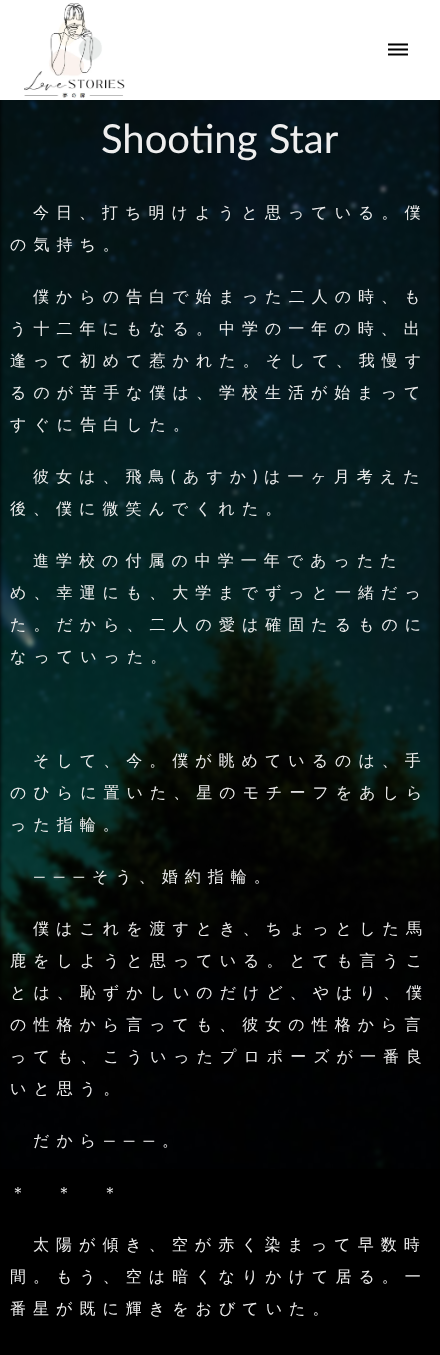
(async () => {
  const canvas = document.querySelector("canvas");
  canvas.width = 440;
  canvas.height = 1355;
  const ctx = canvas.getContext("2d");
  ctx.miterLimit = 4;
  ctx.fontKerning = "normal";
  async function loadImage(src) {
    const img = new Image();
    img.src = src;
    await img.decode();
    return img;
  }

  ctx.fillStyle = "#000000";
  ctx.fillRect(0, 0, 440, 1355);
  ctx.fillStyle = "#ffffff";
  ctx.fillRect(0, 0, 440, 100);
  ctx.drawImage(await loadImage("img/1.png"), 24, 3, 101, 95);
  ctx.drawImage(await loadImage("img/2.png"), 388, 43, 20, 13);
  ctx.drawImage(await loadImage("img/3.png"), 0, 100, 440, 1069);
  ctx.wordSpacing = "1px";
  ctx.font = "40px Lato";
  ctx.fillStyle = "#eeeeee";
  ctx.fillText("Shooting Star", 101, 153);
  ctx.letterSpacing = "7px";
  ctx.wordSpacing = "0px";
  ctx.font = "500 16px WenQuanYi Zen Hei";
  for (const [text, x, y] of [
    ["今日、打ち明けようと思っている。僕", 33, 218],
    ["の気持ち。", 10, 250],
    ["僕からの告白で始まった二人の時、も", 33, 302],
    ["う十二年にもなる。中学の一年の時、出", 10, 334],
    ["逢って初めて惹かれた。そして、我慢す", 10, 366],
    ["るのが苦手な僕は、学校生活が始まって", 10, 398],
    ["すぐに告白した。", 10, 430],
    ["彼女は、飛鳥", 33, 482],
  ]) {
    ctx.fillText(text, x, y);
  }
  ctx.font = "16px Lato";
  ctx.fillText("(", 171, 482);
  ctx.font = "500 16px WenQuanYi Zen Hei";
  ctx.fillText("あすか", 183, 482);
  ctx.font = "16px Lato";
  ctx.fillText(")", 253, 482);
  ctx.font = "500 16px WenQuanYi Zen Hei";
  for (const [text, x, y] of [
    ["は一ヶ月考えた", 264, 482],
    ["後、僕に微笑んでくれた。", 10, 514],
    ["進学校の付属の中学一年であったた", 33, 566],
    ["め、幸運にも、大学までずっと一緒だっ", 10, 598],
    ["た。だから、二人の愛は確固たるものに", 10, 630],
    ["なっていった。", 10, 662],
    ["そして、今。僕が眺めているのは、手", 33, 766],
    ["のひらに置いた、星のモチーフをあしら", 10, 798],
    ["った指輪。", 10, 830],
  ]) {
    ctx.fillText(text, x, y);
  }
  ctx.font = "16px Lato";
  ctx.fillText("―――", 33, 882);
  ctx.font = "500 16px WenQuanYi Zen Hei";
  for (const [text, x, y] of [
    ["そう、婚約指輪。", 92, 882],
    ["僕はこれを渡すとき、ちょっとした馬", 33, 934],
    ["鹿をしようと思っている。とても言うこ", 10, 966],
    ["とは、恥ずかしいのだけど、やはり、僕", 10, 998],
    ["の性格から言っても、彼女の性格から言", 10, 1030],
    ["っても、こういったプロポーズが一番良", 10, 1062],
    ["いと思う。", 10, 1094],
    ["だから", 33, 1146],
  ]) {
    ctx.fillText(text, x, y);
  }
  ctx.font = "16px Lato";
  ctx.fillText("―――", 103, 1146);
  ctx.font = "500 16px WenQuanYi Zen Hei";
  for (const [text, x, y] of [
    ["。", 162, 1146],
    ["＊　＊　＊", 10, 1198],
    ["太陽が傾き、空が赤く染まって早数時", 33, 1250],
    ["間。もう、空は暗くなりかけて居る。一", 10, 1282],
    ["番星が既に輝きをおびていた。", 10, 1314],
  ]) {
    ctx.fillText(text, x, y);
  }
})();
